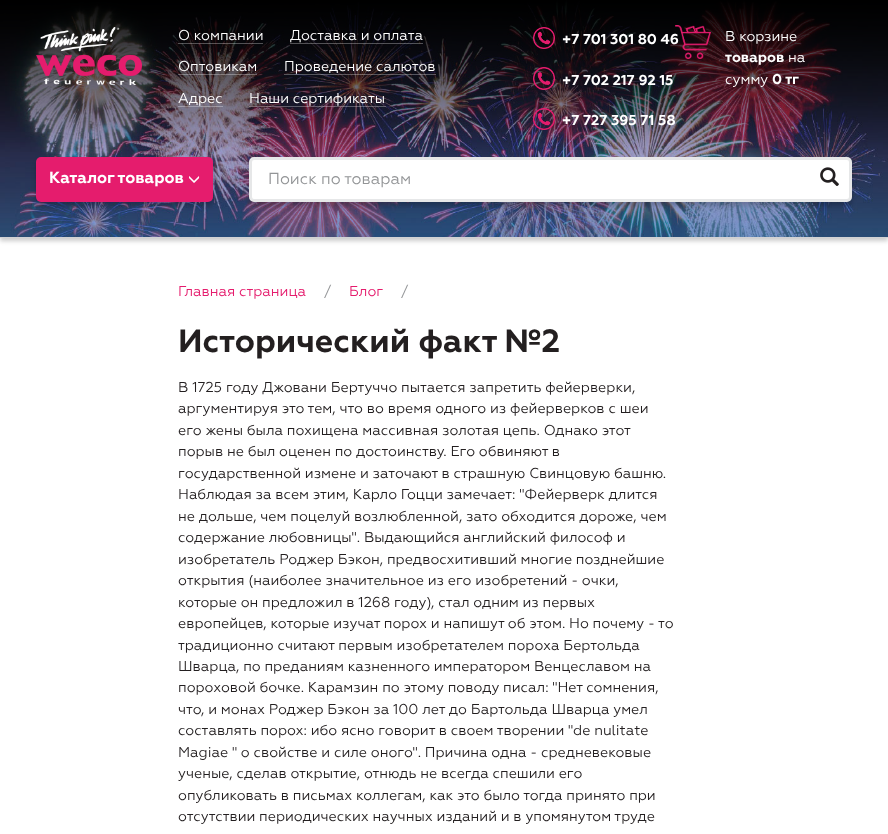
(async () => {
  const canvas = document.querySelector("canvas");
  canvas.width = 888;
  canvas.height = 834;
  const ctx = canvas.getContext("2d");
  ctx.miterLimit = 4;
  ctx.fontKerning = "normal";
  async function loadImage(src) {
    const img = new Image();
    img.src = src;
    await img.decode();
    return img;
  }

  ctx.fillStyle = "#ffffff";
  ctx.fillRect(0, 0, 888, 834);
  ctx.fillStyle = "rgba(0, 0, 0, 0.2)";
  ctx.filter = "blur(2px)";
  ctx.beginPath();
  ctx.rect(0, 4, 888, 237);
  ctx.fill();
  ctx.filter = "none";
  ctx.drawImage(await loadImage("img/1.png"), 0, 0, 888, 237);
  ctx.drawImage(await loadImage("img/2.png"), 36, 27, 106, 58);
  for (const [x, y, w, h, color] of [
    [178, 43, 85, 1, "rgba(255, 255, 255, 0.3)"],
    [290, 43, 133, 1, "rgba(255, 255, 255, 0.3)"],
    [178, 74, 79, 1, "rgba(255, 255, 255, 0.3)"],
    [284, 74, 152, 1, "rgba(255, 255, 255, 0.3)"],
    [178, 106, 45, 1, "rgba(255, 255, 255, 0.3)"],
    [249, 106, 137, 1, "rgba(255, 255, 255, 0.3)"],
  ]) {
    ctx.fillStyle = color;
    ctx.fillRect(x, y, w, h);
  }
  ctx.drawImage(await loadImage("img/3.png"), 533, 27, 22, 22);
  ctx.drawImage(await loadImage("img/4.png"), 533, 67, 22, 23);
  ctx.drawImage(await loadImage("img/5.png"), 533, 108, 22, 22);
  ctx.fillStyle = "rgba(0, 0, 0, 0.2)";
  ctx.filter = "blur(2px)";
  ctx.beginPath();
  ctx.roundRect(36, 161, 177, 45, 5);
  ctx.fill();
  ctx.filter = "none";
  ctx.fillStyle = "#e51c6d";
  ctx.beginPath();
  ctx.roundRect(36, 157, 177, 45, 5);
  ctx.fill();
  ctx.drawImage(await loadImage("img/7.png"), 189, 176, 11, 7);
  ctx.fillStyle = "rgba(0, 0, 0, 0.2)";
  ctx.filter = "blur(2px)";
  ctx.beginPath();
  ctx.roundRect(249, 161, 603, 45, 5);
  ctx.fill();
  ctx.filter = "none";
  ctx.fillStyle = "#ffffff";
  ctx.beginPath();
  ctx.roundRect(250.5, 158.5, 600, 42, 3.5);
  ctx.fill();
  ctx.strokeStyle = "#e6e7e8";
  ctx.lineWidth = 3;
  ctx.stroke();
  ctx.drawImage(await loadImage("img/8.png"), 820, 167, 19, 19);
  ctx.fillStyle = "#d1d2d4";
  ctx.fillRect(0, 237, 888, 1);
  ctx.font = "14.3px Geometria";
  ctx.fillStyle = "#ffffff";
  for (const [text, x, y] of [
    ["О компании", 178, 40],
    ["Доставка и оплата", 290, 40],
    ["Оптовикам", 178, 71],
    ["Проведение салютов", 284, 71],
    ["Адрес", 178, 103],
    ["Наши сертификаты", 249, 103],
  ]) {
    ctx.fillText(text, x, y);
  }
  ctx.font = "bold 14.3px Geometria";
  for (const [text, x, y] of [
    ["+7 701 301 80 46", 562, 44],
    ["+7 702 217 92 15", 562, 85],
    ["+7 727 395 71 58", 562, 125],
  ]) {
    ctx.fillText(text, x, y);
  }
  ctx.drawImage(await loadImage("img/6.png"), 675, 25, 36, 34);
  ctx.font = "14.3px Geometria";
  ctx.fillText("В корзине", 725, 41);
  ctx.font = "bold 14.3px Geometria";
  ctx.fillText("товаров", 725, 62);
  ctx.font = "14.3px Geometria";
  ctx.fillText("на", 788, 62);
  ctx.fillText("сумму", 725, 84);
  ctx.font = "bold 14.3px Geometria";
  ctx.fillText("0 тг", 772, 84);
  ctx.font = "bold 16px Geometria";
  ctx.fillText("Каталог товаров", 49, 183);
  ctx.font = "16px Geometria";
  ctx.fillStyle = "#939597";
  ctx.fillText("Поиск по товарам", 268, 184);
  ctx.font = "14.3px Geometria";
  ctx.fillStyle = "#e51c6d";
  ctx.fillText("Главная страница", 178, 296);
  ctx.fillStyle = "#939597";
  ctx.fillText("/", 324, 296);
  ctx.fillStyle = "#e51c6d";
  ctx.fillText("Блог", 349, 296);
  ctx.fillStyle = "#939597";
  ctx.fillText("/", 401, 296);
  ctx.font = "bold 32.25px Geometria";
  ctx.fillStyle = "#231f20";
  ctx.fillText("Исторический факт №2", 178, 352);
  ctx.font = "14.3px Geometria";
  for (const [text, x, y] of [
    ["В 1725 году Джовани Бертуччо пытается запретить фейерверки,", 178, 392],
    ["аргументируя это тем, что во время одного из фейерверков с шеи", 178, 413],
    ["его жены была похищена массивная золотая цепь. Однако этот", 178, 435],
    ["порыв не был оценен по достоинству. Его обвиняют в", 178, 456],
    ["государственной измене и заточают в страшную Свинцовую башню.", 178, 478],
    ["Наблюдая за всем этим, Карло Гоцци замечает: \"Фейерверк длится", 178, 499],
    ["не дольше, чем поцелуй возлюбленной, зато обходится дороже, чем", 178, 521],
    ["содержание любовницы\". Выдающийся английский философ и", 178, 542],
    ["изобретатель Роджер Бэкон, предвосхитивший многие позднейшие", 178, 564],
    ["открытия (наиболее значительное из его изобретений - очки,", 178, 585],
    ["которые он предложил в 1268 году), стал одним из первых", 178, 607],
    ["европейцев, которые изучат порох и напишут об этом. Но почему - то", 178, 628],
    ["традиционно считают первым изобретателем пороха Бертольда", 178, 650],
    ["Шварца, по преданиям казненного императором Венцеславом на", 178, 671],
    ["пороховой бочке. Карамзин по этому поводу писал: \"Нет сомнения,", 178, 692],
    ["что, и монах Роджер Бэкон за 100 лет до Бартольда Шварца умел", 178, 714],
    ["составлять порох: ибо ясно говорит в своем творении \"de nulitate", 178, 735],
    ["Magiae \" о свойстве и силе оного\". Причина одна - средневековые", 178, 757],
    ["ученые, сделав открытие, отнюдь не всегда спешили его", 178, 778],
    ["опубликовать в письмах коллегам, как это было тогда принято при", 178, 800],
    ["отсутствии периодических научных изданий и в упомянутом труде", 178, 821],
  ]) {
    ctx.fillText(text, x, y);
  }
})();
